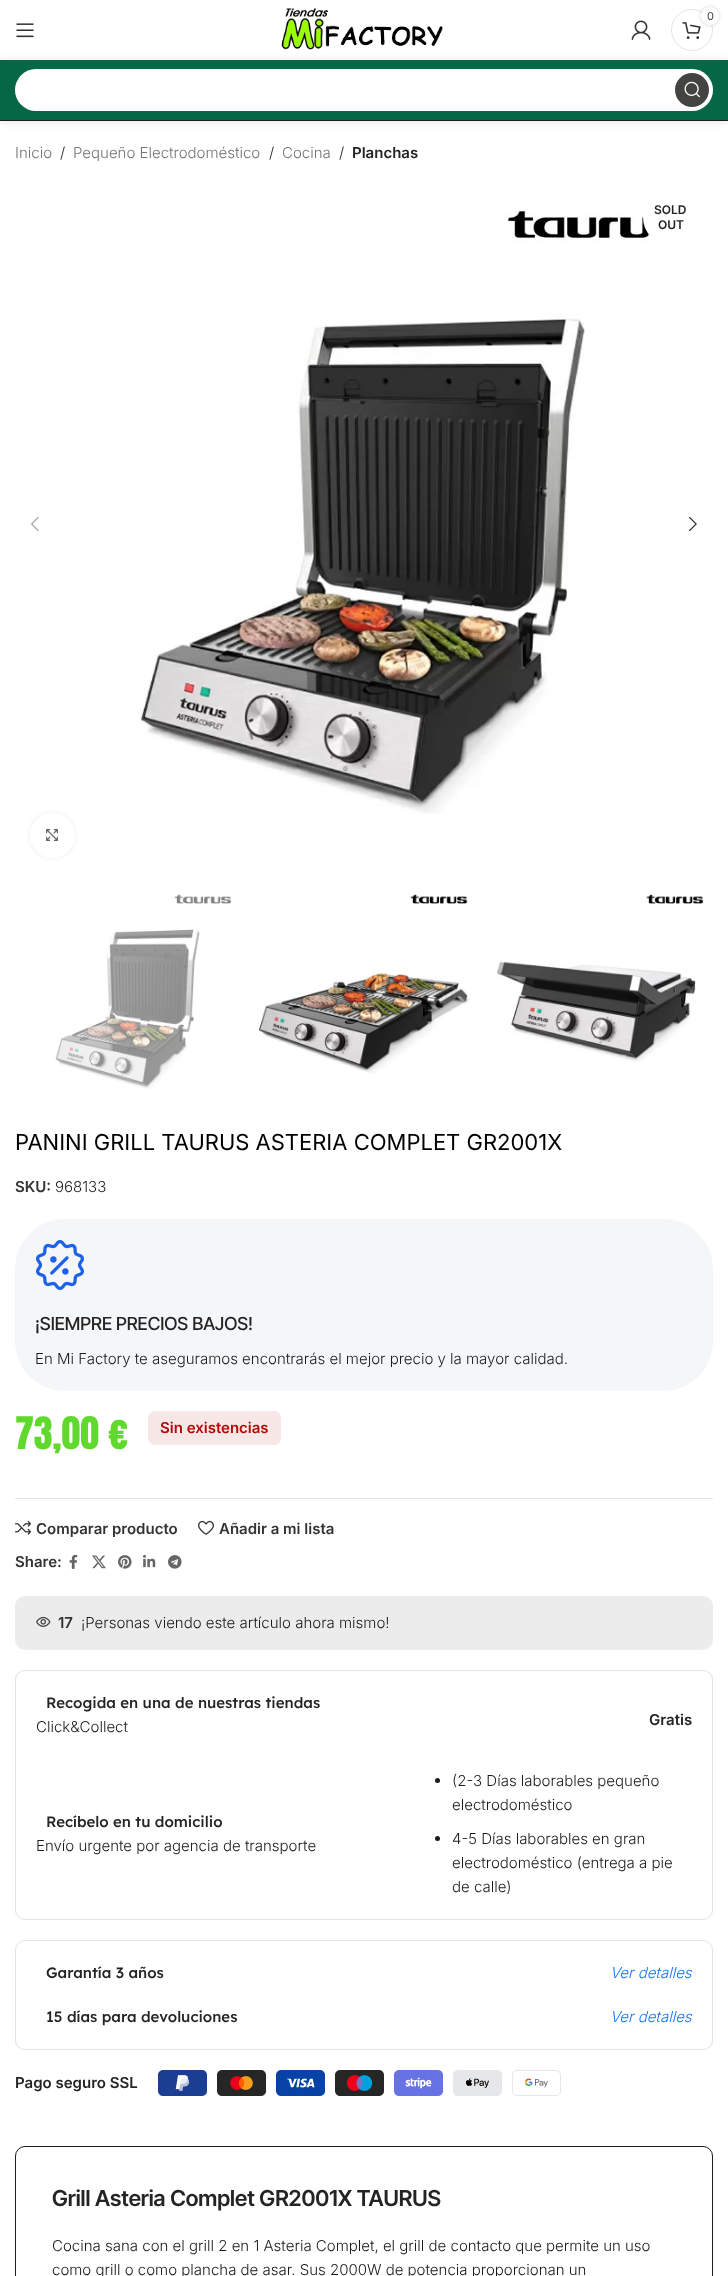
(async () => {
  const canvas = document.querySelector("canvas");
  canvas.width = 728;
  canvas.height = 2276;
  const ctx = canvas.getContext("2d");
  ctx.miterLimit = 4;
  ctx.fontKerning = "normal";
  async function loadImage(src) {
    const img = new Image();
    img.src = src;
    await img.decode();
    return img;
  }

  ctx.fillStyle = "#ffffff";
  ctx.fillRect(0, 0, 728, 2276);
  ctx.fillStyle = "rgba(0, 0, 0, 0.1)";
  ctx.filter = "blur(4px)";
  ctx.beginPath();
  ctx.rect(0, 61, 728, 61);
  ctx.fill();
  ctx.filter = "none";
  ctx.drawImage(await loadImage("img/1.png"), 281, 8, 162, 42);
  ctx.beginPath();
  ctx.arc(692, 30, 20.5, 0, Math.PI * 2);
  ctx.strokeStyle = "#e4e4e4";
  ctx.stroke();
  ctx.drawImage(await loadImage("img/2.png"), 682, 22, 19, 17);
  ctx.fillStyle = "rgba(0, 0, 0, 0.17)";
  ctx.filter = "blur(2px)";
  ctx.beginPath();
  ctx.roundRect(701, 7, 18, 18, 9);
  ctx.fill();
  ctx.filter = "none";
  ctx.fillStyle = "#ffffff";
  ctx.beginPath();
  ctx.arc(710, 16, 9, 0, Math.PI * 2);
  ctx.fill();
  ctx.drawImage(await loadImage("img/3.png"), 631, 20, 20, 20);
  ctx.drawImage(await loadImage("img/4.png"), 16, 23, 18, 15);
  ctx.fillStyle = "#046846";
  ctx.fillRect(0, 60, 728, 60);
  ctx.fillStyle = "#1c1c1c";
  ctx.fillRect(0, 120, 728, 1);
  ctx.fillStyle = "#ffffff";
  ctx.beginPath();
  ctx.roundRect(15, 69, 698, 42, 21);
  ctx.fill();
  ctx.beginPath();
  ctx.roundRect(15.5, 69.5, 697, 41, 20.5);
  ctx.strokeStyle = "rgba(255, 255, 255, 0.2)";
  ctx.stroke();
  ctx.fillStyle = "#434442";
  ctx.beginPath();
  ctx.arc(692, 90, 17, 0, Math.PI * 2);
  ctx.fill();
  ctx.drawImage(await loadImage("img/5.png"), 684, 81, 16, 17);
  ctx.drawImage(await loadImage("img/6.png"), 139, 209, 545, 605);
  ctx.fillStyle = "#ffffff";
  ctx.beginPath();
  ctx.arc(670.5, 217.5, 27.5, 0, Math.PI * 2);
  ctx.fill();
  ctx.drawImage(await loadImage("img/7.png"), 31, 517, 8, 14);
  ctx.drawImage(await loadImage("img/8.png"), 689, 516, 8, 16);
  ctx.fillStyle = "rgba(0, 0, 0, 0.08)";
  ctx.filter = "blur(2.5px)";
  ctx.beginPath();
  ctx.roundRect(30, 813, 45, 45, 22.5);
  ctx.fill();
  ctx.filter = "none";
  ctx.fillStyle = "#ffffff";
  ctx.beginPath();
  ctx.arc(52.5, 835.5, 22.5, 0, Math.PI * 2);
  ctx.fill();
  ctx.drawImage(await loadImage("img/9.png"), 46, 829, 12, 12);
  ctx.drawImage(await loadImage("img/10.png"), 55, 894, 177, 195);
  ctx.drawImage(await loadImage("img/11.png"), 258, 894, 212, 180);
  ctx.drawImage(await loadImage("img/12.png"), 497, 894, 207, 168);
  ctx.fillStyle = "#f4f6f8";
  ctx.beginPath();
  ctx.roundRect(15, 1219, 698, 172, 50);
  ctx.fill();
  ctx.drawImage(await loadImage("img/13.png"), 36, 1240, 48, 50);
  ctx.fillStyle = "#f8e7e7";
  ctx.beginPath();
  ctx.roundRect(148, 1411, 133, 34, 7);
  ctx.fill();
  ctx.fillStyle = "#e3e3e3";
  ctx.fillRect(15, 1498, 698, 1);
  ctx.drawImage(await loadImage("img/14.png"), 15, 1520, 16, 15);
  ctx.drawImage(await loadImage("img/15.png"), 198, 1520, 16, 15);
  ctx.drawImage(await loadImage("img/16.png"), 69, 1554, 9, 15);
  ctx.drawImage(await loadImage("img/17.png"), 92, 1555, 14, 14);
  ctx.drawImage(await loadImage("img/18.png"), 118, 1555, 14, 14);
  ctx.drawImage(await loadImage("img/19.png"), 143, 1554, 13, 14);
  ctx.drawImage(await loadImage("img/20.png"), 168, 1555, 14, 14);
  ctx.drawImage(await loadImage("img/21.png"), 36, 1616, 15, 11);
  ctx.fillStyle = "rgba(67, 68, 66, 0.1)";
  ctx.beginPath();
  ctx.roundRect(15, 1596, 698, 54, 10);
  ctx.fill();
  ctx.beginPath();
  ctx.roundRect(15.5, 1670.5, 697, 249, 9.5);
  ctx.strokeStyle = "#e3e3e3";
  ctx.stroke();
  ctx.fillStyle = "#1c1c1c";
  ctx.beginPath();
  ctx.arc(437.5, 1780.5, 2.5, 0, Math.PI * 2);
  ctx.fill();
  ctx.beginPath();
  ctx.arc(437.5, 1838.5, 2.5, 0, Math.PI * 2);
  ctx.fill();
  ctx.beginPath();
  ctx.roundRect(15.5, 1940.5, 697, 109, 9.5);
  ctx.stroke();
  ctx.drawImage(await loadImage("img/22.png"), 158, 2070, 403, 26);
  ctx.beginPath();
  ctx.roundRect(15.5, 2146.5, 697, 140, 9.5);
  ctx.strokeStyle = "#1c1c1c";
  ctx.stroke();
  ctx.font = "11px Inter";
  ctx.fillStyle = "#434442";
  ctx.fillText("0", 707, 20);
  ctx.font = "300 15px Inter";
  ctx.fillStyle = "#767676";
  ctx.fillText("Inicio", 15, 158);
  ctx.fillStyle = "#1c1c1c";
  ctx.fillText("/", 60, 158);
  ctx.fillStyle = "#767676";
  ctx.fillText("Pequeño Electrodoméstico", 73, 158);
  ctx.fillStyle = "#1c1c1c";
  ctx.fillText("/", 269, 158);
  ctx.fillStyle = "#767676";
  ctx.fillText("Cocina", 282, 158);
  ctx.fillStyle = "#1c1c1c";
  ctx.fillText("/", 339, 158);
  ctx.font = "600 15px Inter";
  ctx.fillStyle = "#242424";
  ctx.fillText("Planchas", 352, 158);
  ctx.font = "600 12px Inter";
  ctx.fillText("SOLD", 654, 214);
  ctx.fillText("OUT", 658, 229);
  ctx.font = "22px Inter";
  ctx.fillStyle = "#000000";
  ctx.fillText("PANINI GRILL TAURUS ASTERIA COMPLET GR2001X", 15, 1150);
  ctx.font = "600 15px Inter";
  ctx.fillStyle = "#333333";
  ctx.fillText("SKU:", 15, 1192);
  ctx.font = "300 15px Inter";
  ctx.fillStyle = "#1c1c1c";
  ctx.fillText("968133", 55, 1192);
  ctx.font = "500 18px Inter Tight";
  ctx.fillStyle = "#242424";
  ctx.fillText("¡SIEMPRE PRECIOS BAJOS!", 35, 1330);
  ctx.font = "300 15px Inter";
  ctx.fillStyle = "#1c1c1c";
  ctx.fillText("En Mi Factory te aseguramos encontrarás el mejor precio y la mayor calidad.", 35, 1364);
  ctx.font = "38px Anton";
  ctx.fillStyle = "#60d82d";
  ctx.fillText("73,00 €", 15, 1449);
  ctx.font = "600 15px Inter";
  ctx.fillStyle = "#b50808";
  ctx.fillText("Sin existencias", 160, 1433);
  ctx.fillStyle = "#333333";
  for (const [text, x, y] of [
    ["Comparar producto", 36, 1534],
    ["Añadir a mi lista", 219, 1534],
    ["Share:", 15, 1567],
    ["17", 58, 1628],
  ]) {
    ctx.fillText(text, x, y);
  }
  ctx.font = "300 15px Inter";
  ctx.fillStyle = "#1c1c1c";
  ctx.fillText("¡Personas viendo este artículo ahora mismo!", 81, 1628);
  ctx.font = "500 15px Lexend Deca";
  ctx.fillStyle = "#242424";
  ctx.fillText("Recogida en una de nuestras tiendas", 46, 1708);
  ctx.font = "300 15px Inter";
  ctx.fillStyle = "#1c1c1c";
  ctx.fillText("Click&Collect", 36, 1732);
  ctx.font = "600 15px Inter";
  ctx.fillStyle = "#242424";
  ctx.fillText("Gratis", 649, 1725);
  ctx.font = "500 15px Lexend Deca";
  ctx.fillText("Recíbelo en tu domicilio", 46, 1827);
  ctx.font = "300 15px Inter";
  ctx.fillStyle = "#1c1c1c";
  for (const [text, x, y] of [
    ["Envío urgente por agencia de transporte", 36, 1851],
    ["(2-3 Días laborables pequeño", 452, 1786],
    ["electrodoméstico", 452, 1810],
    ["4-5 Días laborables en gran", 452, 1844],
    ["electrodoméstico (entrega a pie", 452, 1868],
    ["de calle)", 452, 1892],
  ]) {
    ctx.fillText(text, x, y);
  }
  ctx.font = "500 15px Lexend Deca";
  ctx.fillStyle = "#242424";
  ctx.fillText("Garantía 3 años", 46, 1978);
  ctx.font = "italic 300 15px Inter";
  ctx.fillStyle = "#1877f2";
  ctx.fillText("Ver detalles", 610, 1978);
  ctx.font = "500 15px Lexend Deca";
  ctx.fillStyle = "#242424";
  ctx.fillText("15 días para devoluciones", 46, 2022);
  ctx.font = "italic 300 15px Inter";
  ctx.fillStyle = "#1877f2";
  ctx.fillText("Ver detalles", 610, 2022);
  ctx.font = "600 15px Inter";
  ctx.fillStyle = "#242424";
  ctx.fillText("Pago seguro SSL", 15, 2088);
  ctx.font = "600 22px Inter Tight";
  ctx.fillText("Grill Asteria Complet GR2001X TAURUS", 52, 2206);
  ctx.font = "300 15px Inter";
  ctx.fillStyle = "#1c1c1c";
  ctx.fillText("Cocina sana con el grill 2 en 1 Asteria Complet, el grill de contacto que permite un uso", 52, 2251);
  ctx.fillText("como grill o como plancha de asar. Sus 2000W de potencia proporcionan un", 52, 2275);
})();
